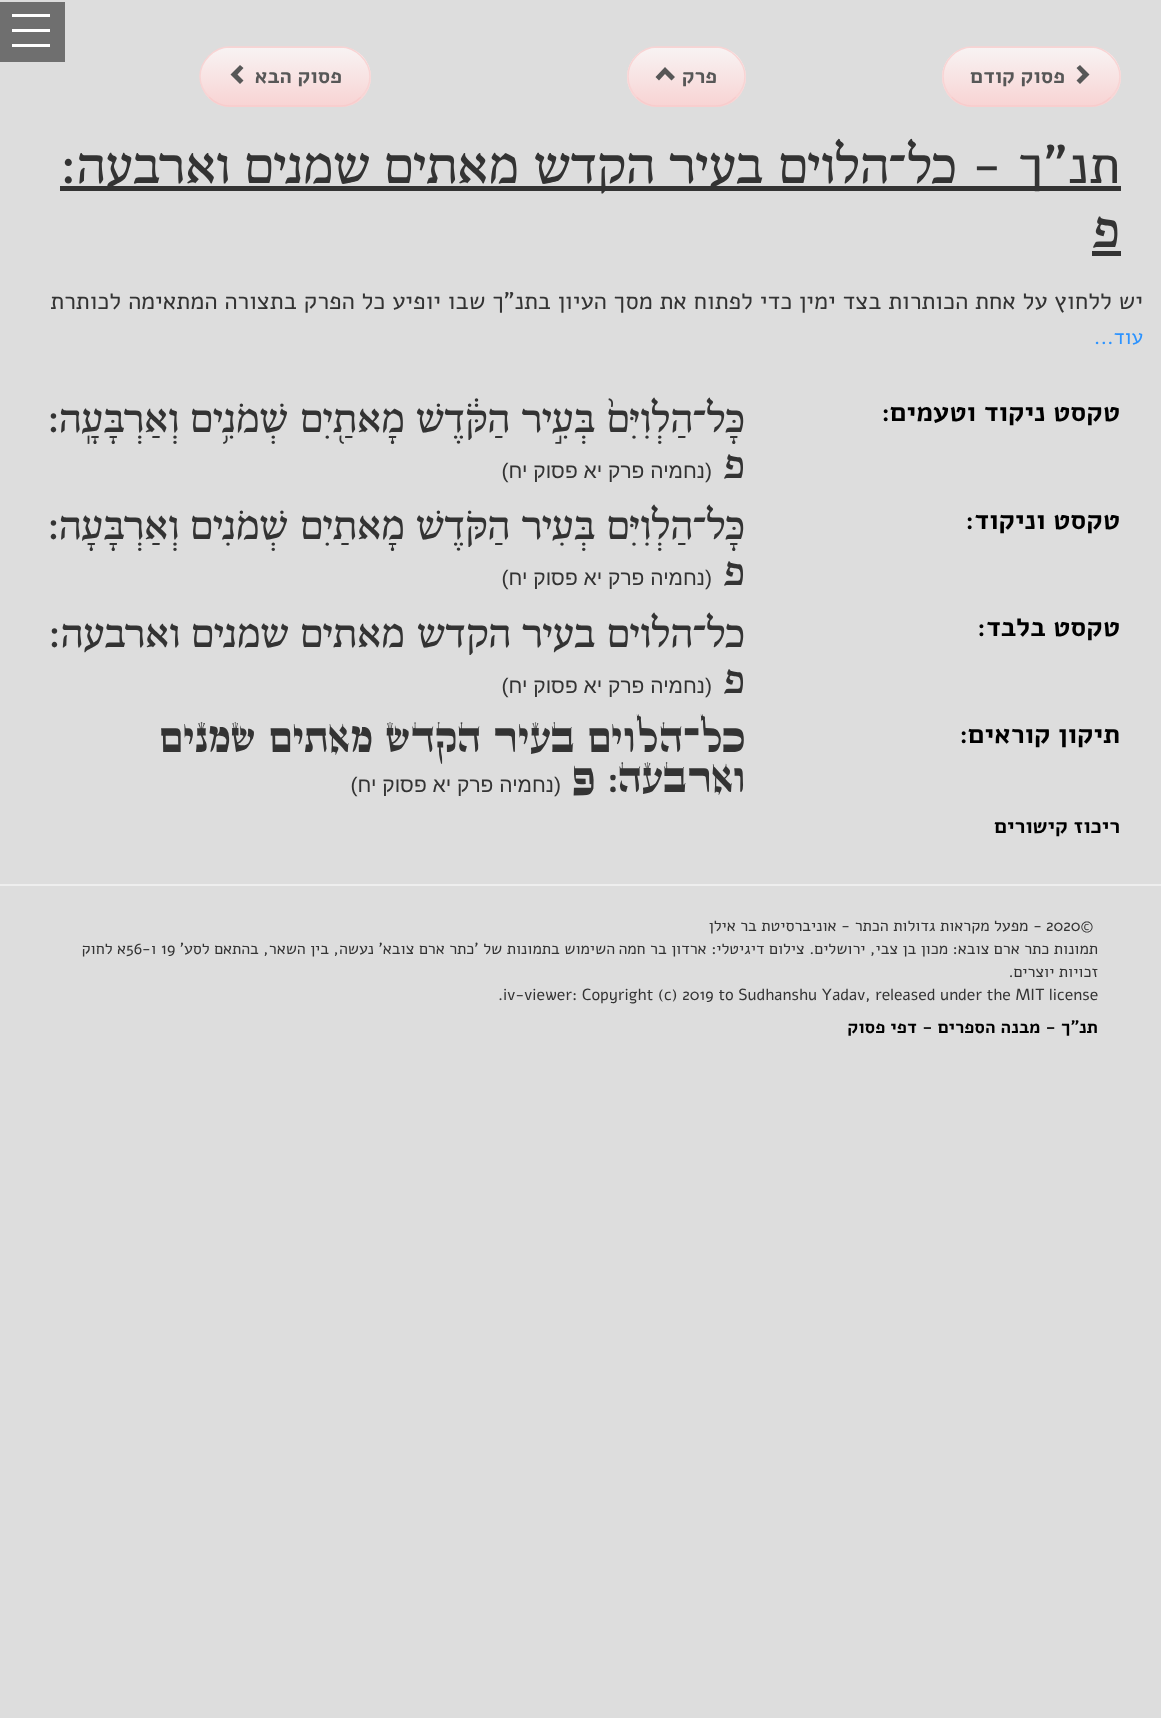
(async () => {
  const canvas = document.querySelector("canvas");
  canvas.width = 1161;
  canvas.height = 1718;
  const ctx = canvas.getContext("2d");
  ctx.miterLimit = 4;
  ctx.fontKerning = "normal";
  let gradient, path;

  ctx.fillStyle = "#dddddd";
  ctx.fillRect(0, 0, 1161, 1718);
  for (const [x, y, w, h, color] of [
    [0, 2, 65, 60, "#6f6f6f"],
    [12, 29, 38, 3, "#ffffff"],
    [12, 14, 38, 3, "#ffffff"],
    [12, 44, 38, 3, "#ffffff"],
  ]) {
    ctx.fillStyle = color;
    ctx.fillRect(x, y, w, h);
  }
  ctx.fillStyle = "#f8d4d4";
  ctx.beginPath();
  ctx.roundRect(942, 47, 179, 60, 30);
  ctx.fill();
  ctx.save();
  ctx.beginPath();
  ctx.roundRect(942, 47, 179, 60, 30);
  ctx.clip();
  gradient = ctx.createLinearGradient(1031, 48, 1031, 105);
  gradient.addColorStop(0, "#f8f3f3");
  gradient.addColorStop(1, "#f8d4d4");
  ctx.fillStyle = gradient;
  ctx.fillRect(942, 48, 179, 57);
  ctx.restore();
  path = new Path2D("M1111 97C1105.5 102.5 1098.5 106 1090.5 106H972C964 106 957 102.5 951.5 97");
  ctx.strokeStyle = "#f8cccc";
  ctx.lineWidth = 1.5;
  ctx.stroke(path);
  path = new Path2D("M951.5 97C946 91.5 943 84.5 943 76.5C943 68.5 946 61.5 951.5 56C957 50.5 964 47 972 47H1090.5C1098.5 47 1105.5 50.5 1111 56C1116.5 61.5 1120 68.5 1120 76.5C1120 84.5 1116.5 91.5 1111 97");
  ctx.strokeStyle = "#f8d4d4";
  ctx.stroke(path);
  ctx.fillStyle = "#575757";
  path = new Path2D("M1089.5 74.5L1080 84L1076.5 80.5L1082.5 74.5L1076.5 68L1080 65Z");
  ctx.fill(path);
  ctx.fillStyle = "#f8d4d4";
  ctx.beginPath();
  ctx.roundRect(627, 47, 119, 60, 30);
  ctx.fill();
  ctx.save();
  ctx.beginPath();
  ctx.roundRect(627, 47, 119, 60, 30);
  ctx.clip();
  gradient = ctx.createLinearGradient(686, 48, 686, 105);
  gradient.addColorStop(0, "#f8f3f3");
  gradient.addColorStop(1, "#f8d4d4");
  ctx.fillStyle = gradient;
  ctx.fillRect(627, 48, 119, 57);
  ctx.restore();
  path = new Path2D("M736 97C730.5 102.5 723.5 106 715.5 106H657C649 106 642 102.5 636.5 97");
  ctx.strokeStyle = "#f8cccc";
  ctx.stroke(path);
  path = new Path2D("M636.5 97C631 91.5 628 84.5 628 76.5C628 68.5 631 61.5 636.5 56C642 50.5 649 47 657 47H715.5C723.5 47 730.5 50.5 736 56C741.5 61.5 745 68.5 745 76.5C745 84.5 741.5 91.5 736 97");
  ctx.strokeStyle = "#f8d4d4";
  ctx.stroke(path);
  ctx.fillStyle = "#575757";
  path = new Path2D("M675 77L671.5 80.5L665 74L659 80.5L655.5 77L665 67Z");
  ctx.fill(path);
  ctx.fillStyle = "#f8d4d4";
  ctx.beginPath();
  ctx.roundRect(200, 47, 171, 60, 30);
  ctx.fill();
  ctx.save();
  ctx.beginPath();
  ctx.roundRect(200, 47, 171, 60, 30);
  ctx.clip();
  gradient = ctx.createLinearGradient(285, 48, 285, 105);
  gradient.addColorStop(0, "#f8f3f3");
  gradient.addColorStop(1, "#f8d4d4");
  ctx.fillStyle = gradient;
  ctx.fillRect(200, 48, 171, 57);
  ctx.restore();
  path = new Path2D("M361 97C355.5 102.5 348.5 106 340.5 106H229.5C221.5 106 214.5 102.5 209 97");
  ctx.strokeStyle = "#f8cccc";
  ctx.stroke(path);
  path = new Path2D("M209 97C203.5 91.5 200 84.5 200 76.5C200 68.5 203.5 61.5 209 56C214.5 50.5 221.5 47 229.5 47H340.5C348.5 47 355.5 50.5 361 56C366.5 61.5 370 68.5 370 76.5C370 84.5 366.5 91.5 361 97");
  ctx.strokeStyle = "#f8d4d4";
  ctx.stroke(path);
  ctx.fillStyle = "#575757";
  path = new Path2D("M243.5 68L237.5 74.5L243.5 80.5L240 84L230.5 74.5L240 65Z");
  ctx.fill(path);
  for (const [x, y, w, h, color] of [
    [60, 186, 1061, 5, "#333333"],
    [1092, 251, 29, 5, "#333333"],
    [0, 884, 1161, 2, "#eeeeee"],
  ]) {
    ctx.fillStyle = color;
    ctx.fillRect(x, y, w, h);
  }
  ctx.direction = "rtl";
  ctx.font = "bold 21px Alef";
  ctx.fillStyle = "#575757";
  for (const [text, x, y] of [
    ["פסוק קודם", 1065, 83],
    ["פרק", 717, 83],
    ["פסוק הבא", 342, 83],
  ]) {
    ctx.fillText(text, x, y);
  }
  ctx.font = "54px Alef";
  ctx.fillStyle = "#333333";
  ctx.fillText("תנ\"ך -", 1120, 183);
  ctx.font = "54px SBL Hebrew";
  for (const [text, x, y] of [
    ["כל", 957, 183],
    ["־", 907, 183],
    ["הלוים", 889, 183],
    ["בעיר", 763, 183],
    ["הקדש", 655, 183],
    ["מאתים", 519, 183],
    ["שמנים", 370, 183],
    ["וארבעה", 230, 183],
  ]) {
    ctx.fillText(text, x, y);
  }
  ctx.direction = "ltr";
  ctx.fillText(":", 60, 183);
  ctx.direction = "rtl";
  ctx.fillText("פ", 1120, 247);
  ctx.font = "24px Alef";
  ctx.fillText("יש ללחוץ על אחת הכותרות בצד ימין כדי לפתוח את מסך העיון בתנ\"ך שבו יופיע כל הפרק בתצורה המתאימה לכותרת", 1143, 309);
  ctx.font = "21px Alef";
  ctx.fillStyle = "#2c93ff";
  ctx.fillText("עוד...", 1143, 344);
  ctx.font = "bold 27px Alef";
  ctx.fillStyle = "#000000";
  ctx.fillText("טקסט ניקוד וטעמים:", 1120, 421);
  ctx.font = "42px SBL Hebrew";
  ctx.fillStyle = "#333333";
  for (const [text, x, y] of [
    ["כָּל", 745, 432],
    ["־", 707, 432],
    ["הַלְוִיִּם֙", 693, 432],
    ["בְּעִ֣יר", 595, 432],
    ["הַקֹּ֔דֶשׁ", 510, 432],
    ["מָאתַ֖יִם", 405, 432],
    ["שְׁמֹנִ֥ים", 288, 432],
    ["וְאַרְבָּעָֽה", 179, 432],
  ]) {
    ctx.fillText(text, x, y);
  }
  ctx.direction = "ltr";
  ctx.fillText(":", 47, 432);
  ctx.direction = "rtl";
  ctx.fillText("פ", 745, 478);
  ctx.font = "21px Liberation Sans";
  ctx.fillText("(נחמיה פרק יא פסוק יח)", 712, 478);
  ctx.font = "bold 27px Alef";
  ctx.fillStyle = "#000000";
  ctx.fillText("טקסט וניקוד:", 1120, 529);
  ctx.font = "42px SBL Hebrew";
  ctx.fillStyle = "#333333";
  for (const [text, x, y] of [
    ["כָּל", 745, 539],
    ["־", 707, 539],
    ["הַלְוִיִּם", 693, 539],
    ["בְּעִיר", 595, 539],
    ["הַקֹּדֶשׁ", 510, 539],
    ["מָאתַיִם", 405, 539],
    ["שְׁמֹנִים", 288, 539],
    ["וְאַרְבָּעָה", 179, 539],
  ]) {
    ctx.fillText(text, x, y);
  }
  ctx.direction = "ltr";
  ctx.fillText(":", 47, 539);
  ctx.direction = "rtl";
  ctx.fillText("פ", 745, 585);
  ctx.font = "21px Liberation Sans";
  ctx.fillText("(נחמיה פרק יא פסוק יח)", 712, 585);
  ctx.font = "bold 27px Alef";
  ctx.fillStyle = "#000000";
  ctx.fillText("טקסט בלבד:", 1120, 636);
  ctx.font = "42px SBL Hebrew";
  ctx.fillStyle = "#333333";
  for (const [text, x, y] of [
    ["כל", 745, 647],
    ["־", 707, 647],
    ["הלוים", 693, 647],
    ["בעיר", 595, 647],
    ["הקדש", 511, 647],
    ["מאתים", 405, 647],
    ["שמנים", 289, 647],
    ["וארבעה", 180, 647],
  ]) {
    ctx.fillText(text, x, y);
  }
  ctx.direction = "ltr";
  ctx.fillText(":", 48, 647);
  ctx.direction = "rtl";
  ctx.fillText("פ", 745, 693);
  ctx.font = "21px Liberation Sans";
  ctx.fillText("(נחמיה פרק יא פסוק יח)", 712, 693);
  ctx.font = "bold 27px Alef";
  ctx.fillStyle = "#000000";
  ctx.fillText("תיקון קוראים:", 1120, 743);
  ctx.font = "36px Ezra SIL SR";
  ctx.fillStyle = "#333333";
  for (const [text, x, y] of [
    ["כל", 745, 752],
    ["־", 700, 752],
    ["הלוים", 683, 752],
    ["בעיר", 575, 752],
    ["הקדש", 481, 752],
    ["מאתים", 373, 752],
    ["שמנים", 256, 752],
    ["וארבעה", 745, 792],
  ]) {
    ctx.fillText(text, x, y);
  }
  ctx.direction = "ltr";
  ctx.fillText(":", 608, 792);
  ctx.direction = "rtl";
  ctx.fillText("פ", 595, 792);
  ctx.font = "21px Liberation Sans";
  ctx.fillText("(נחמיה פרק יא פסוק יח)", 561, 792);
  ctx.font = "bold 21px Alef";
  ctx.fillStyle = "#000000";
  ctx.fillText("ריכוז קישורים", 1120, 833);
  ctx.direction = "ltr";
  ctx.font = "16px Alef";
  ctx.fillStyle = "#333333";
  ctx.fillText("2020©", 1046, 931);
  ctx.direction = "rtl";
  for (const [text, x, y] of [
    ["- מפעל מקראות גדולות הכתר - אוניברסיטת בר אילן", 1042, 931],
    ["תמונות כתר ארם צובא: מכון בן צבי, ירושלים. צילום דיגיטלי: ארדון בר חמה", 1098, 954],
    ["השימוש בתמונות של 'כתר ארם צובא' נעשה, בין השאר, בהתאם לסע'", 615, 954],
  ]) {
    ctx.fillText(text, x, y);
  }
  ctx.direction = "ltr";
  ctx.fillText("19", 161, 954);
  ctx.direction = "rtl";
  ctx.fillText("ו-", 156, 954);
  ctx.direction = "ltr";
  ctx.fillText("56", 126, 954);
  ctx.direction = "rtl";
  ctx.fillText("א לחוק", 126, 954);
  ctx.fillText("זכויות יוצרים.", 1098, 977);
  ctx.direction = "ltr";
  ctx.fillText(".iv-viewer: Copyright (c) 2019 to Sudhanshu Yadav, released under the MIT license", 498, 1000);
  ctx.direction = "rtl";
  ctx.font = "bold 18px Alef";
  ctx.fillStyle = "#000000";
  ctx.fillText("תנ\"ך - מבנה הספרים - דפי פסוק", 1098, 1033);
})();
